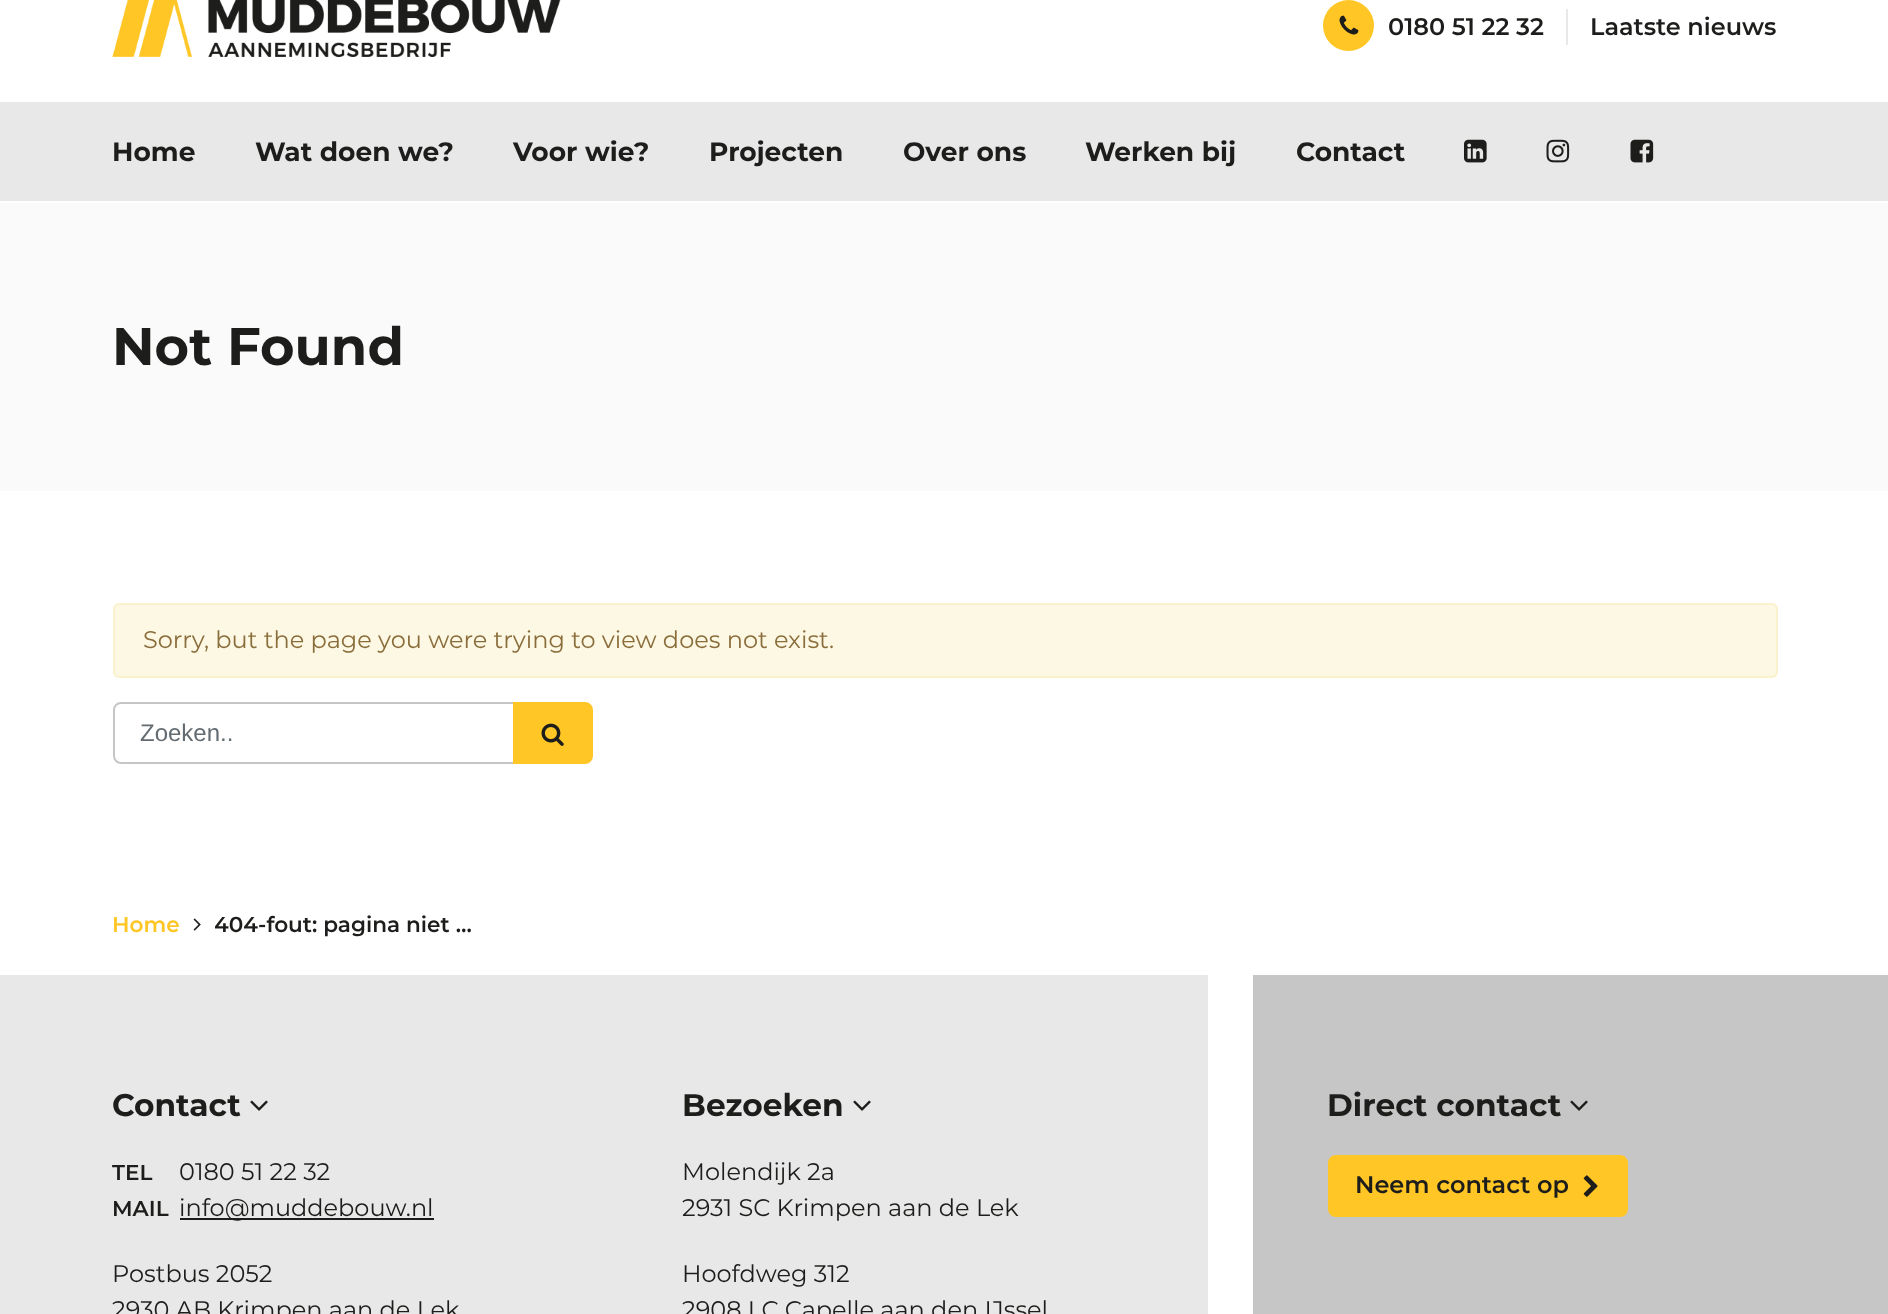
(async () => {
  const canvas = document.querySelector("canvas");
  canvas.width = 1888;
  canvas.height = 1314;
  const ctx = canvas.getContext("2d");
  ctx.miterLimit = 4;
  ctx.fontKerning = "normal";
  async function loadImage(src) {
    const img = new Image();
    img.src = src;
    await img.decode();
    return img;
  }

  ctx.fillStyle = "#ffffff";
  ctx.fillRect(0, 0, 1888, 1314);
  ctx.drawImage(await loadImage("img/1.png"), 112, 0, 449, 57);
  ctx.fillStyle = "#e8e8e8";
  ctx.fillRect(1566, 9, 2, 36);
  ctx.fillStyle = "#ffc625";
  ctx.beginPath();
  ctx.arc(1348.5, 25.5, 25.5, 0, Math.PI * 2);
  ctx.fill();
  ctx.drawImage(await loadImage("img/2.png"), 1339, 15, 20, 20);
  ctx.fillStyle = "#e8e8e8";
  ctx.fillRect(0, 102, 1888, 99);
  ctx.drawImage(await loadImage("img/3.png"), 1464, 139, 23, 24);
  ctx.drawImage(await loadImage("img/4.png"), 1546, 139, 24, 24);
  ctx.drawImage(await loadImage("img/5.png"), 1630, 139, 24, 24);
  ctx.fillStyle = "#fafafa";
  ctx.fillRect(0, 203, 1888, 288);
  ctx.fillStyle = "#fcf8e3";
  ctx.beginPath();
  ctx.roundRect(114, 604, 1663, 73, 5);
  ctx.fill();
  ctx.strokeStyle = "#faf2cc";
  ctx.lineWidth = 2;
  ctx.stroke();
  ctx.beginPath();
  ctx.roundRect(114, 703, 400, 60, [7, 0, 0, 7]);
  ctx.strokeStyle = "#c6c6c6";
  ctx.stroke();
  ctx.fillStyle = "#ffc625";
  ctx.beginPath();
  ctx.roundRect(514, 703, 78, 60, [0, 7, 7, 0]);
  ctx.fill();
  ctx.strokeStyle = "#ffc625";
  ctx.stroke();
  ctx.drawImage(await loadImage("img/6.png"), 541, 723, 23, 23);
  ctx.drawImage(await loadImage("img/7.png"), 193, 918, 8, 13);
  ctx.fillStyle = "#e8e8e8";
  ctx.fillRect(0, 975, 1208, 339);
  ctx.drawImage(await loadImage("img/8.png"), 250, 1100, 18, 11);
  ctx.fillStyle = "#1d1d1b";
  ctx.fillRect(180, 1218, 254, 2);
  ctx.drawImage(await loadImage("img/8.png"), 853, 1100, 18, 11);
  ctx.fillStyle = "#c6c6c6";
  ctx.fillRect(1253, 975, 635, 339);
  ctx.drawImage(await loadImage("img/9.png"), 1570, 1100, 18, 11);
  ctx.fillStyle = "#ffc625";
  ctx.beginPath();
  ctx.roundRect(1329, 1156, 298, 60, 7);
  ctx.fill();
  ctx.stroke();
  ctx.drawImage(await loadImage("img/10.png"), 1583, 1175, 15, 22);
  ctx.font = "600 24px Montserrat";
  ctx.fillStyle = "#1d1d1b";
  ctx.fillText("0180 51 22 32", 1388, 35);
  ctx.fillText("Laatste nieuws", 1590, 35);
  ctx.font = "bold 26.5px Montserrat";
  for (const [text, x, y] of [
    ["Home", 112, 161],
    ["Wat doen we?", 255, 161],
    ["Voor wie?", 513, 161],
    ["Projecten", 709, 161],
    ["Over ons", 903, 161],
    ["Werken bij", 1085, 161],
    ["Contact", 1296, 161],
  ]) {
    ctx.fillText(text, x, y);
  }
  ctx.font = "bold 52.75px Montserrat";
  ctx.fillText("Not Found", 112, 365);
  ctx.font = "24px Montserrat";
  ctx.fillStyle = "#8a6d3b";
  ctx.fillText("Sorry, but the page you were trying to view does not exist.", 143, 648);
  ctx.font = "24px Liberation Sans";
  ctx.fillStyle = "#636c72";
  ctx.fillText("Zoeken..", 140, 741);
  ctx.font = "600 21.6px Montserrat";
  ctx.fillStyle = "#ffc625";
  ctx.fillText("Home", 112, 932);
  ctx.save();
  ctx.beginPath();
  ctx.rect(215, 909, 270, 33);
  ctx.clip();
  ctx.fillStyle = "#1d1d1b";
  ctx.fillText("404-fout: pagina niet …", 214, 932);
  ctx.restore();
  ctx.font = "bold 31.25px Montserrat";
  ctx.fillStyle = "#1d1d1b";
  ctx.fillText("Contact", 112, 1116);
  ctx.font = "600 21.6px Montserrat";
  ctx.fillText("TEL", 112, 1180);
  ctx.font = "24px Montserrat";
  ctx.fillText("0180 51 22 32", 179, 1180);
  ctx.font = "600 21.6px Montserrat";
  ctx.fillText("MAIL", 112, 1216);
  ctx.font = "24px Montserrat";
  for (const [text, x, y] of [
    ["info@muddebouw.nl", 179, 1216],
    ["Postbus 2052", 112, 1282],
    ["2930 AB Krimpen aan de Lek", 112, 1318],
  ]) {
    ctx.fillText(text, x, y);
  }
  ctx.font = "bold 31.25px Montserrat";
  ctx.fillText("Bezoeken", 682, 1116);
  ctx.font = "24px Montserrat";
  for (const [text, x, y] of [
    ["Molendijk 2a", 682, 1180],
    ["2931 SC Krimpen aan de Lek", 682, 1216],
    ["Hoofdweg 312", 682, 1282],
    ["2908 LC Capelle aan den IJssel", 682, 1318],
  ]) {
    ctx.fillText(text, x, y);
  }
  ctx.font = "bold 31.25px Montserrat";
  ctx.fillText("Direct contact", 1327, 1116);
  ctx.font = "600 24px Montserrat";
  ctx.fillText("Neem contact op", 1355, 1193);
})();
